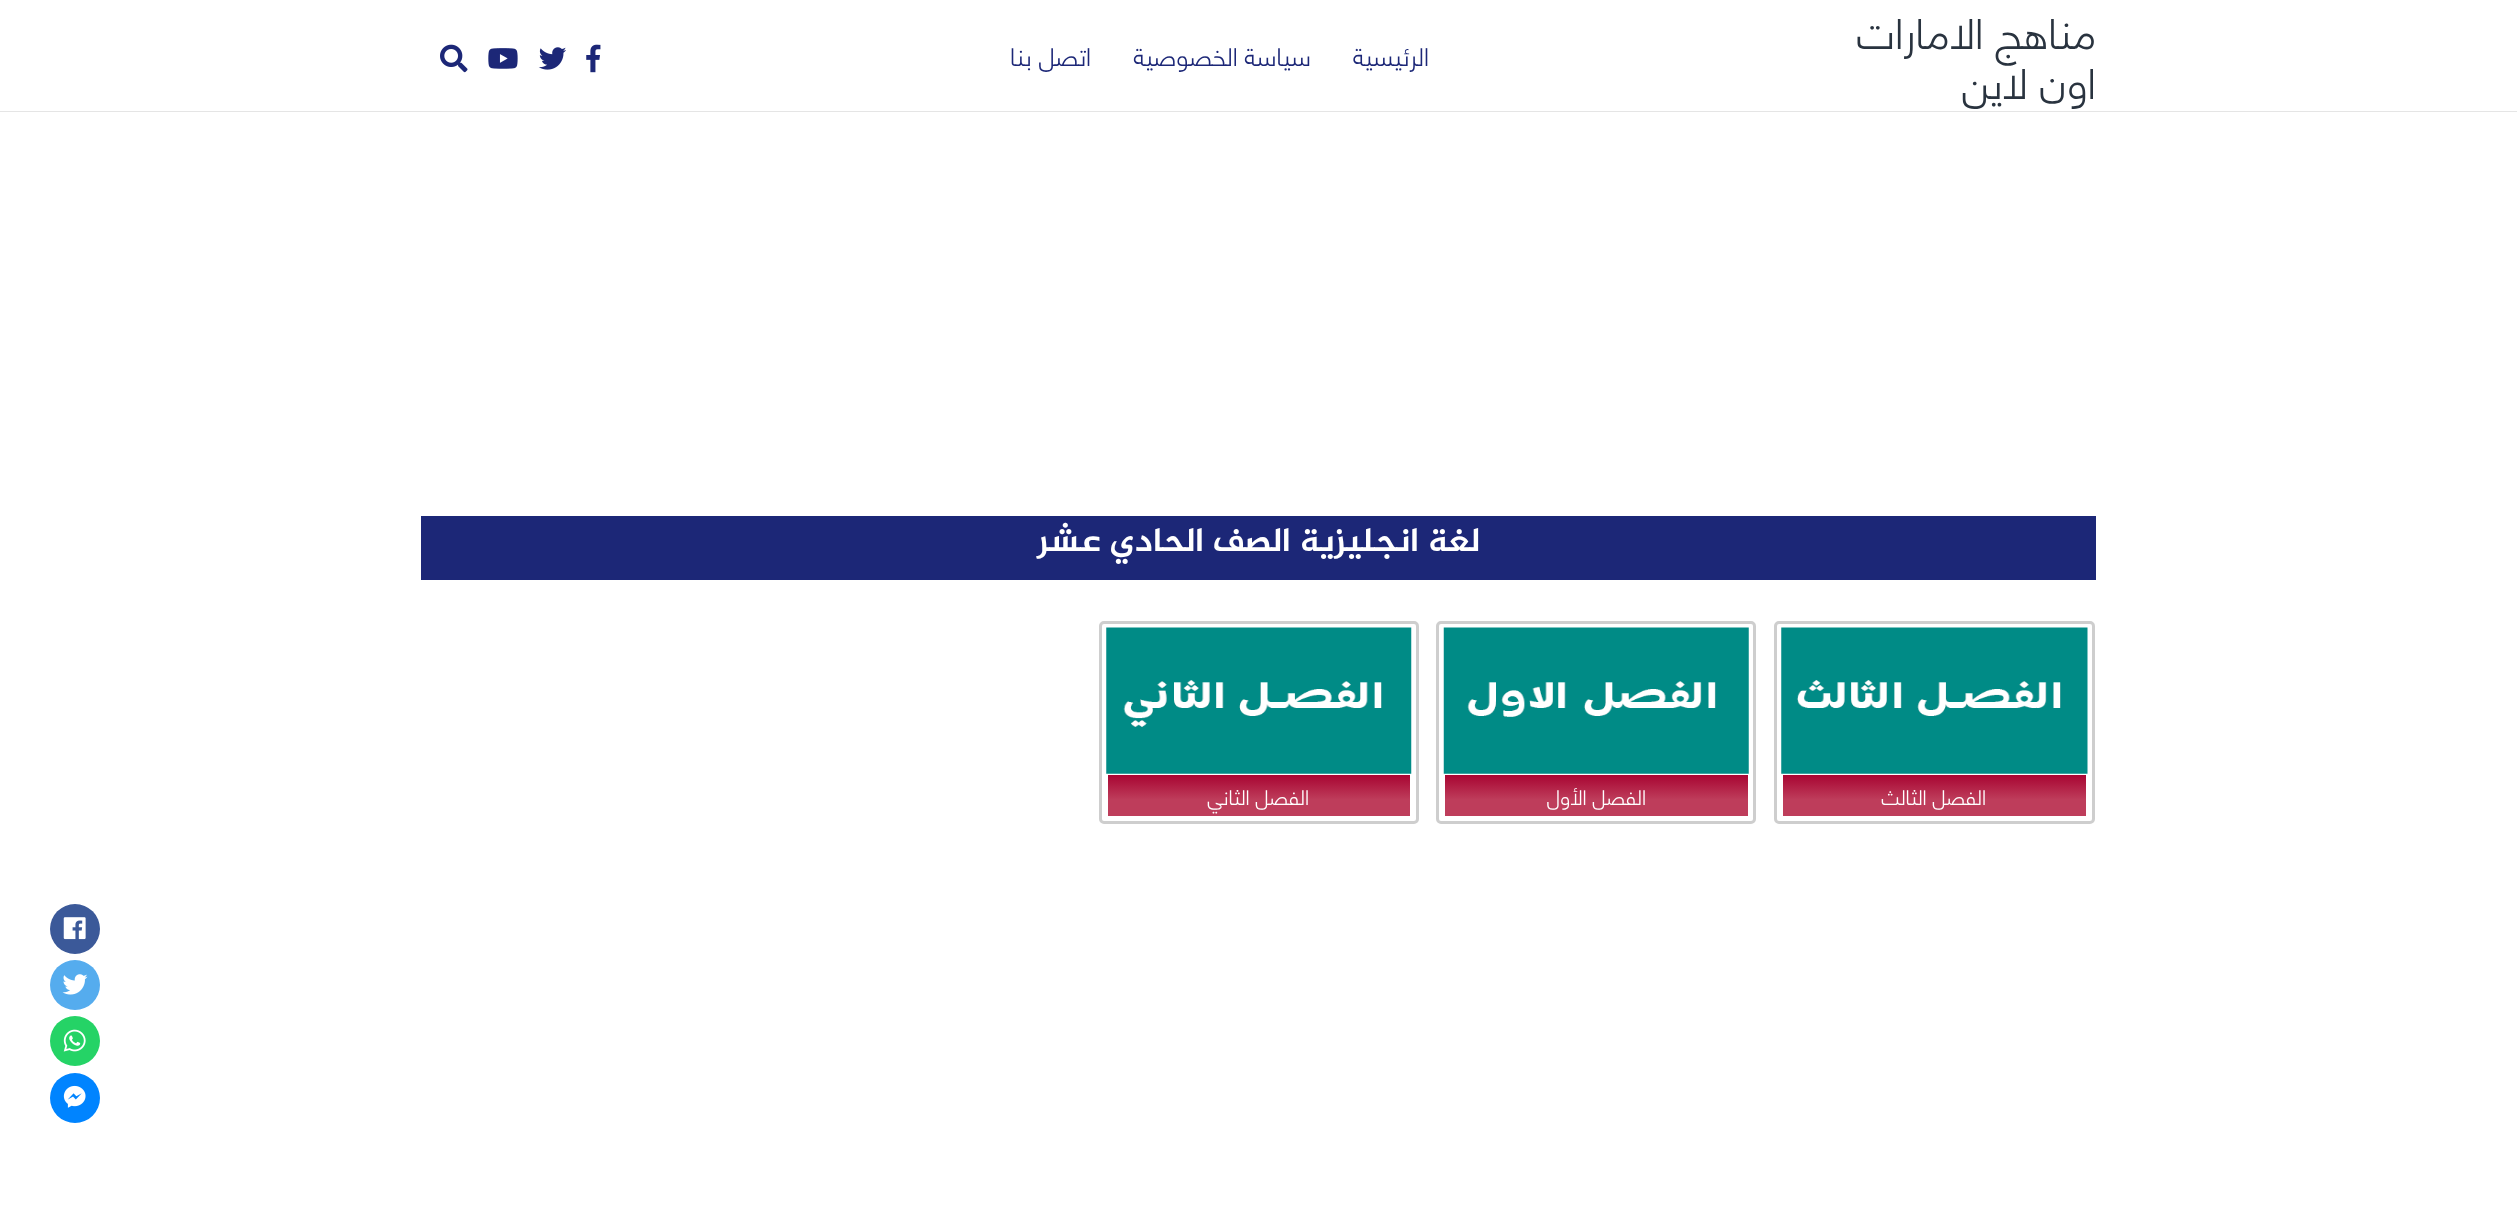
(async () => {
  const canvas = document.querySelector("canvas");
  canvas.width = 2517;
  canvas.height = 1228;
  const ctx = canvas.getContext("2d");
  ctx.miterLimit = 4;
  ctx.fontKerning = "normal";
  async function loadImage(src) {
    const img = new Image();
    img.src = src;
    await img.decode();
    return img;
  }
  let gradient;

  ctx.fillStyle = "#ffffff";
  ctx.fillRect(0, 0, 2517, 1228);
  ctx.fillStyle = "#e5e5e5";
  ctx.fillRect(0, 111, 2517, 1);
  ctx.drawImage(await loadImage("img/1.png"), 586, 44, 15, 29);
  ctx.drawImage(await loadImage("img/2.png"), 538, 47, 28, 23);
  ctx.drawImage(await loadImage("img/3.png"), 488, 48, 30, 21);
  ctx.drawImage(await loadImage("img/4.png"), 440, 44, 28, 29);
  ctx.fillStyle = "#1c2777";
  ctx.fillRect(421, 516, 1675, 64);
  ctx.beginPath();
  ctx.roundRect(1775.5, 622.5, 318, 200, 3.5);
  ctx.strokeStyle = "#cecece";
  ctx.lineWidth = 3;
  ctx.stroke();
  ctx.drawImage(await loadImage("img/5.png"), 1781, 627, 307, 147);
  gradient = ctx.createLinearGradient(1934, 775, 1934, 816);
  gradient.addColorStop(0, "#a80532");
  gradient.addColorStop(0.6, "#be3d5b");
  ctx.fillStyle = gradient;
  ctx.fillRect(1783, 775, 303, 41);
  ctx.beginPath();
  ctx.roundRect(1437.5, 622.5, 317, 200, 3.5);
  ctx.stroke();
  ctx.drawImage(await loadImage("img/6.png"), 1443, 627, 306, 147);
  gradient = ctx.createLinearGradient(1596, 775, 1596, 816);
  gradient.addColorStop(0, "#a80532");
  gradient.addColorStop(0.6, "#be3d5b");
  ctx.fillStyle = gradient;
  ctx.fillRect(1445, 775, 303, 41);
  ctx.beginPath();
  ctx.roundRect(1100.5, 622.5, 317, 200, 3.5);
  ctx.stroke();
  ctx.drawImage(await loadImage("img/7.png"), 1106, 627, 306, 147);
  gradient = ctx.createLinearGradient(1259, 775, 1259, 816);
  gradient.addColorStop(0, "#a80532");
  gradient.addColorStop(0.6, "#be3d5b");
  ctx.fillStyle = gradient;
  ctx.fillRect(1108, 775, 302, 41);
  ctx.fillStyle = "#3b5999";
  ctx.beginPath();
  ctx.arc(75, 929, 25, 0, Math.PI * 2);
  ctx.fill();
  ctx.drawImage(await loadImage("img/8.png"), 63, 917, 23, 23);
  ctx.fillStyle = "#55acee";
  ctx.beginPath();
  ctx.arc(75, 985, 25, 0, Math.PI * 2);
  ctx.fill();
  ctx.drawImage(await loadImage("img/9.png"), 62, 974, 26, 21);
  ctx.fillStyle = "#25d366";
  ctx.beginPath();
  ctx.arc(75, 1041, 25, 0, Math.PI * 2);
  ctx.fill();
  ctx.drawImage(await loadImage("img/10.png"), 63, 1029, 23, 23);
  ctx.fillStyle = "#0084ff";
  ctx.beginPath();
  ctx.arc(75, 1098, 25, 0, Math.PI * 2);
  ctx.fill();
  ctx.drawImage(await loadImage("img/11.png"), 63, 1085, 23, 23);
  ctx.direction = "rtl";
  ctx.font = "300 42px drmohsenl";
  ctx.fillStyle = "#29333f";
  ctx.fillText("مناهج الامارات", 2096, 49);
  ctx.fillText("اون لاين", 2096, 99);
  ctx.font = "300 25px drmohsenl";
  ctx.fillStyle = "#1c2777";
  for (const [text, x, y] of [
    ["الرئيسية", 1429, 66],
    ["سياسة الخصوصية", 1311, 66],
    ["اتصل بنا", 1091, 66],
  ]) {
    ctx.fillText(text, x, y);
  }
  ctx.font = "bold 34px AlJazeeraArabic";
  ctx.fillStyle = "#ffffff";
  ctx.fillText("لغة انجليزية الصف الحادي عشر", 1480, 551);
  ctx.font = "300 20.5px drmohsenl";
  for (const [text, x, y] of [
    ["الفصل الثالث", 1986, 805],
    ["الفصل الأول", 1646, 805],
    ["الفصل الثاني", 1309, 805],
  ]) {
    ctx.fillText(text, x, y);
  }
})();
